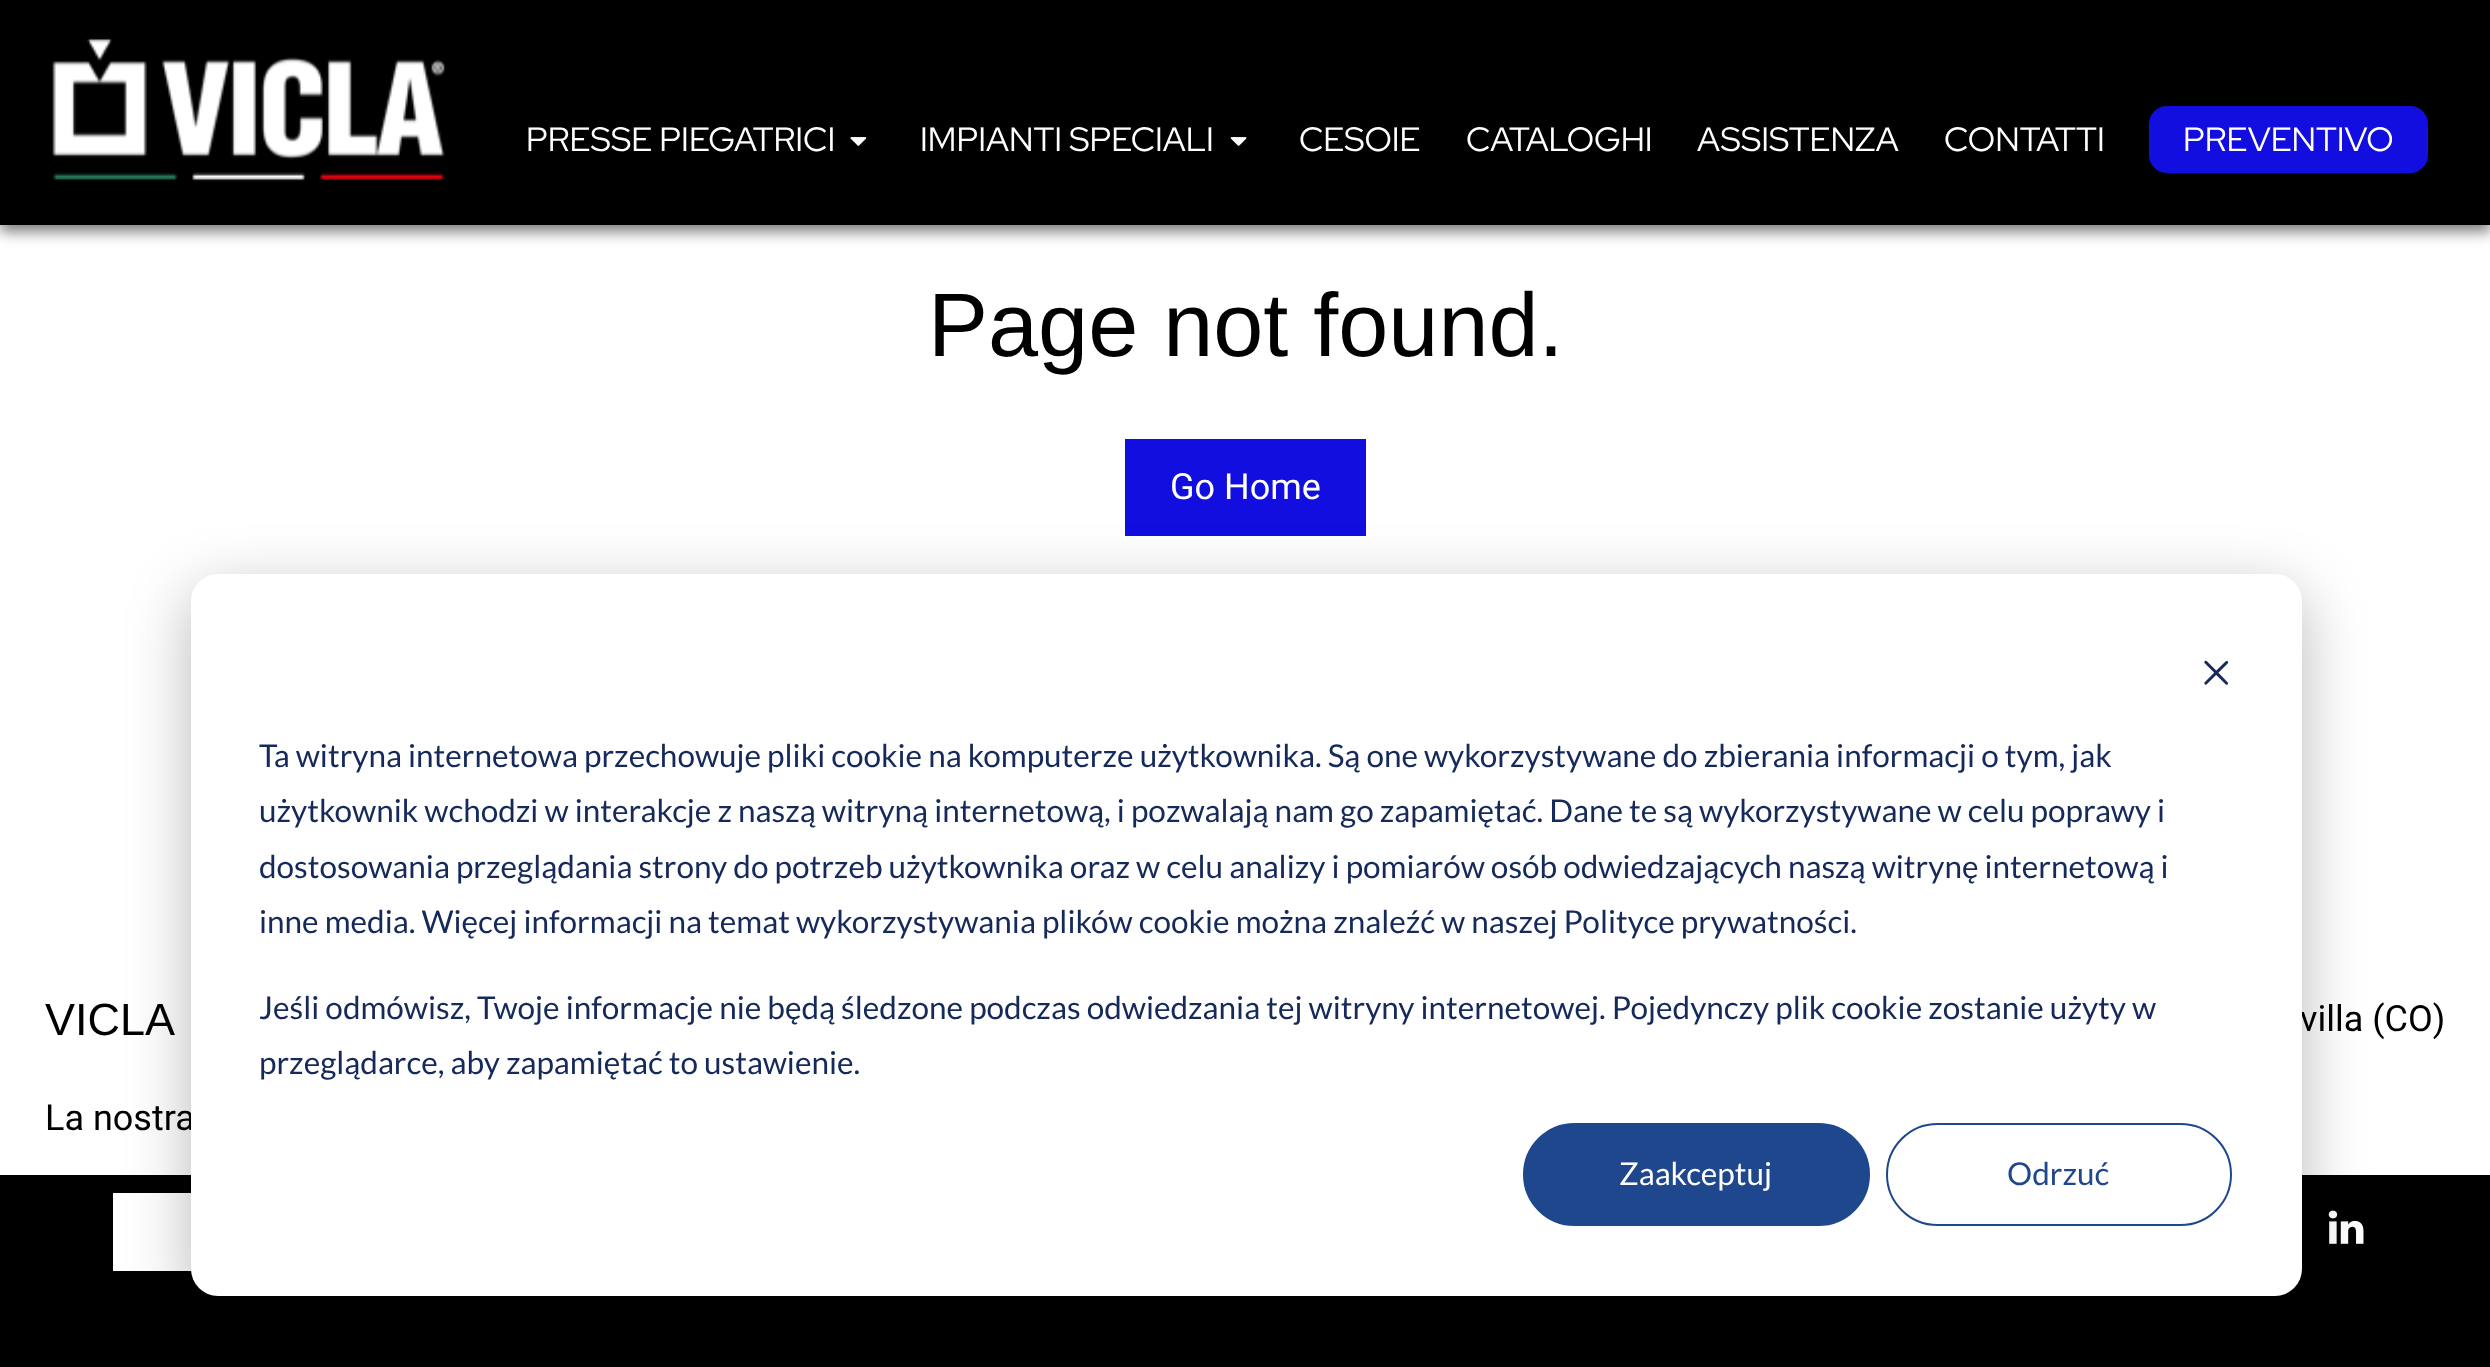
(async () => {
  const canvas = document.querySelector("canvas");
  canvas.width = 2490;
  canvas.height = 1367;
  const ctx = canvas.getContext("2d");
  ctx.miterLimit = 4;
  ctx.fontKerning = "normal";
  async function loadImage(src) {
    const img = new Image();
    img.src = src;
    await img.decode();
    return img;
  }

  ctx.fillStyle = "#ffffff";
  ctx.fillRect(0, 0, 2490, 1367);
  ctx.fillStyle = "rgba(0, 0, 0, 0.5)";
  ctx.filter = "blur(7px)";
  ctx.beginPath();
  ctx.rect(0, 7, 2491, 225);
  ctx.fill();
  ctx.filter = "none";
  ctx.fillStyle = "#000000";
  ctx.fillRect(0, 0, 2490, 225);
  ctx.drawImage(await loadImage("img/1.png"), 52, 38, 393, 144);
  ctx.drawImage(await loadImage("img/2.png"), 850, 137, 17, 9);
  ctx.drawImage(await loadImage("img/3.png"), 1230, 137, 17, 9);
  ctx.fillStyle = "#120edf";
  ctx.beginPath();
  ctx.roundRect(2149, 106, 279, 67, 18);
  ctx.fill();
  for (const [x, y, w, h, color] of [
    [1125, 439, 241, 97, "#120edf"],
    [0, 1175, 2490, 192, "#000000"],
    [113, 1193, 79, 78, "#ffffff"],
  ]) {
    ctx.fillStyle = color;
    ctx.fillRect(x, y, w, h);
  }
  ctx.drawImage(await loadImage("img/4.png"), 2328, 1210, 36, 34);
  ctx.fillStyle = "rgba(0, 0, 0, 0.28)";
  ctx.filter = "blur(31.5px)";
  ctx.beginPath();
  ctx.roundRect(191, 592, 2111, 722, 27);
  ctx.fill();
  ctx.filter = "none";
  ctx.font = "33.75px Red Hat Display";
  ctx.fillStyle = "#ffffff";
  for (const [text, x, y] of [
    ["PRESSE PIEGATRICI", 526, 151],
    ["IMPIANTI SPECIALI", 920, 151],
    ["CESOIE", 1299, 151],
    ["CATALOGHI", 1466, 151],
    ["ASSISTENZA", 1697, 151],
    ["CONTATTI", 1944, 151],
    ["PREVENTIVO", 2183, 151],
  ]) {
    ctx.fillText(text, x, y);
  }
  ctx.font = "90px Liberation Sans";
  ctx.fillStyle = "#000000";
  ctx.fillText("Page not found.", 928, 356);
  ctx.font = "36px Roboto";
  ctx.fillStyle = "#ffffff";
  ctx.fillText("Go Home", 1170, 499);
  ctx.font = "45px Liberation Sans";
  ctx.fillStyle = "#000000";
  ctx.fillText("VICLA", 45, 1035);
  ctx.font = "36px Roboto";
  ctx.fillText("La nostra", 45, 1130);
  ctx.fillText("villa (CO)", 2300, 1031);
  ctx.fillStyle = "#ffffff";
  ctx.beginPath();
  ctx.roundRect(191, 574, 2111, 722, 27);
  ctx.fill();
  ctx.drawImage(await loadImage("img/5.png"), 2204, 660, 25, 25);
  ctx.font = "31.5px Lato";
  ctx.fillStyle = "#15295a";
  for (const [text, x, y] of [
    ["Ta witryna internetowa przechowuje pliki cookie na komputerze użytkownika. Są one wykorzystywane do zbierania informacji o tym, jak", 259, 767],
    ["użytkownik wchodzi w interakcje z naszą witryną internetową, i pozwalają nam go zapamiętać. Dane te są wykorzystywane w celu poprawy i", 259, 822],
    ["dostosowania przeglądania strony do potrzeb użytkownika oraz w celu analizy i pomiarów osób odwiedzających naszą witrynę internetową i", 259, 878],
    ["inne media. Więcej informacji na temat wykorzystywania plików cookie można znaleźć w naszej Polityce prywatności.", 259, 933],
    ["Jeśli odmówisz, Twoje informacje nie będą śledzone podczas odwiedzania tej witryny internetowej. Pojedynczy plik cookie zostanie użyty w", 259, 1019],
    ["przeglądarce, aby zapamiętać to ustawienie.", 259, 1074],
  ]) {
    ctx.fillText(text, x, y);
  }
  ctx.fillStyle = "#1f478d";
  ctx.beginPath();
  ctx.roundRect(1524, 1124, 345, 101, 50.5);
  ctx.fill();
  ctx.strokeStyle = "#1f478d";
  ctx.lineWidth = 2;
  ctx.stroke();
  ctx.fillStyle = "#ffffff";
  ctx.fillText("Zaakceptuj", 1619, 1185);
  ctx.beginPath();
  ctx.roundRect(1887, 1124, 344, 101, 50.5);
  ctx.stroke();
  ctx.fillStyle = "#1f478d";
  ctx.fillText("Odrzuć", 2007, 1185);
})();
